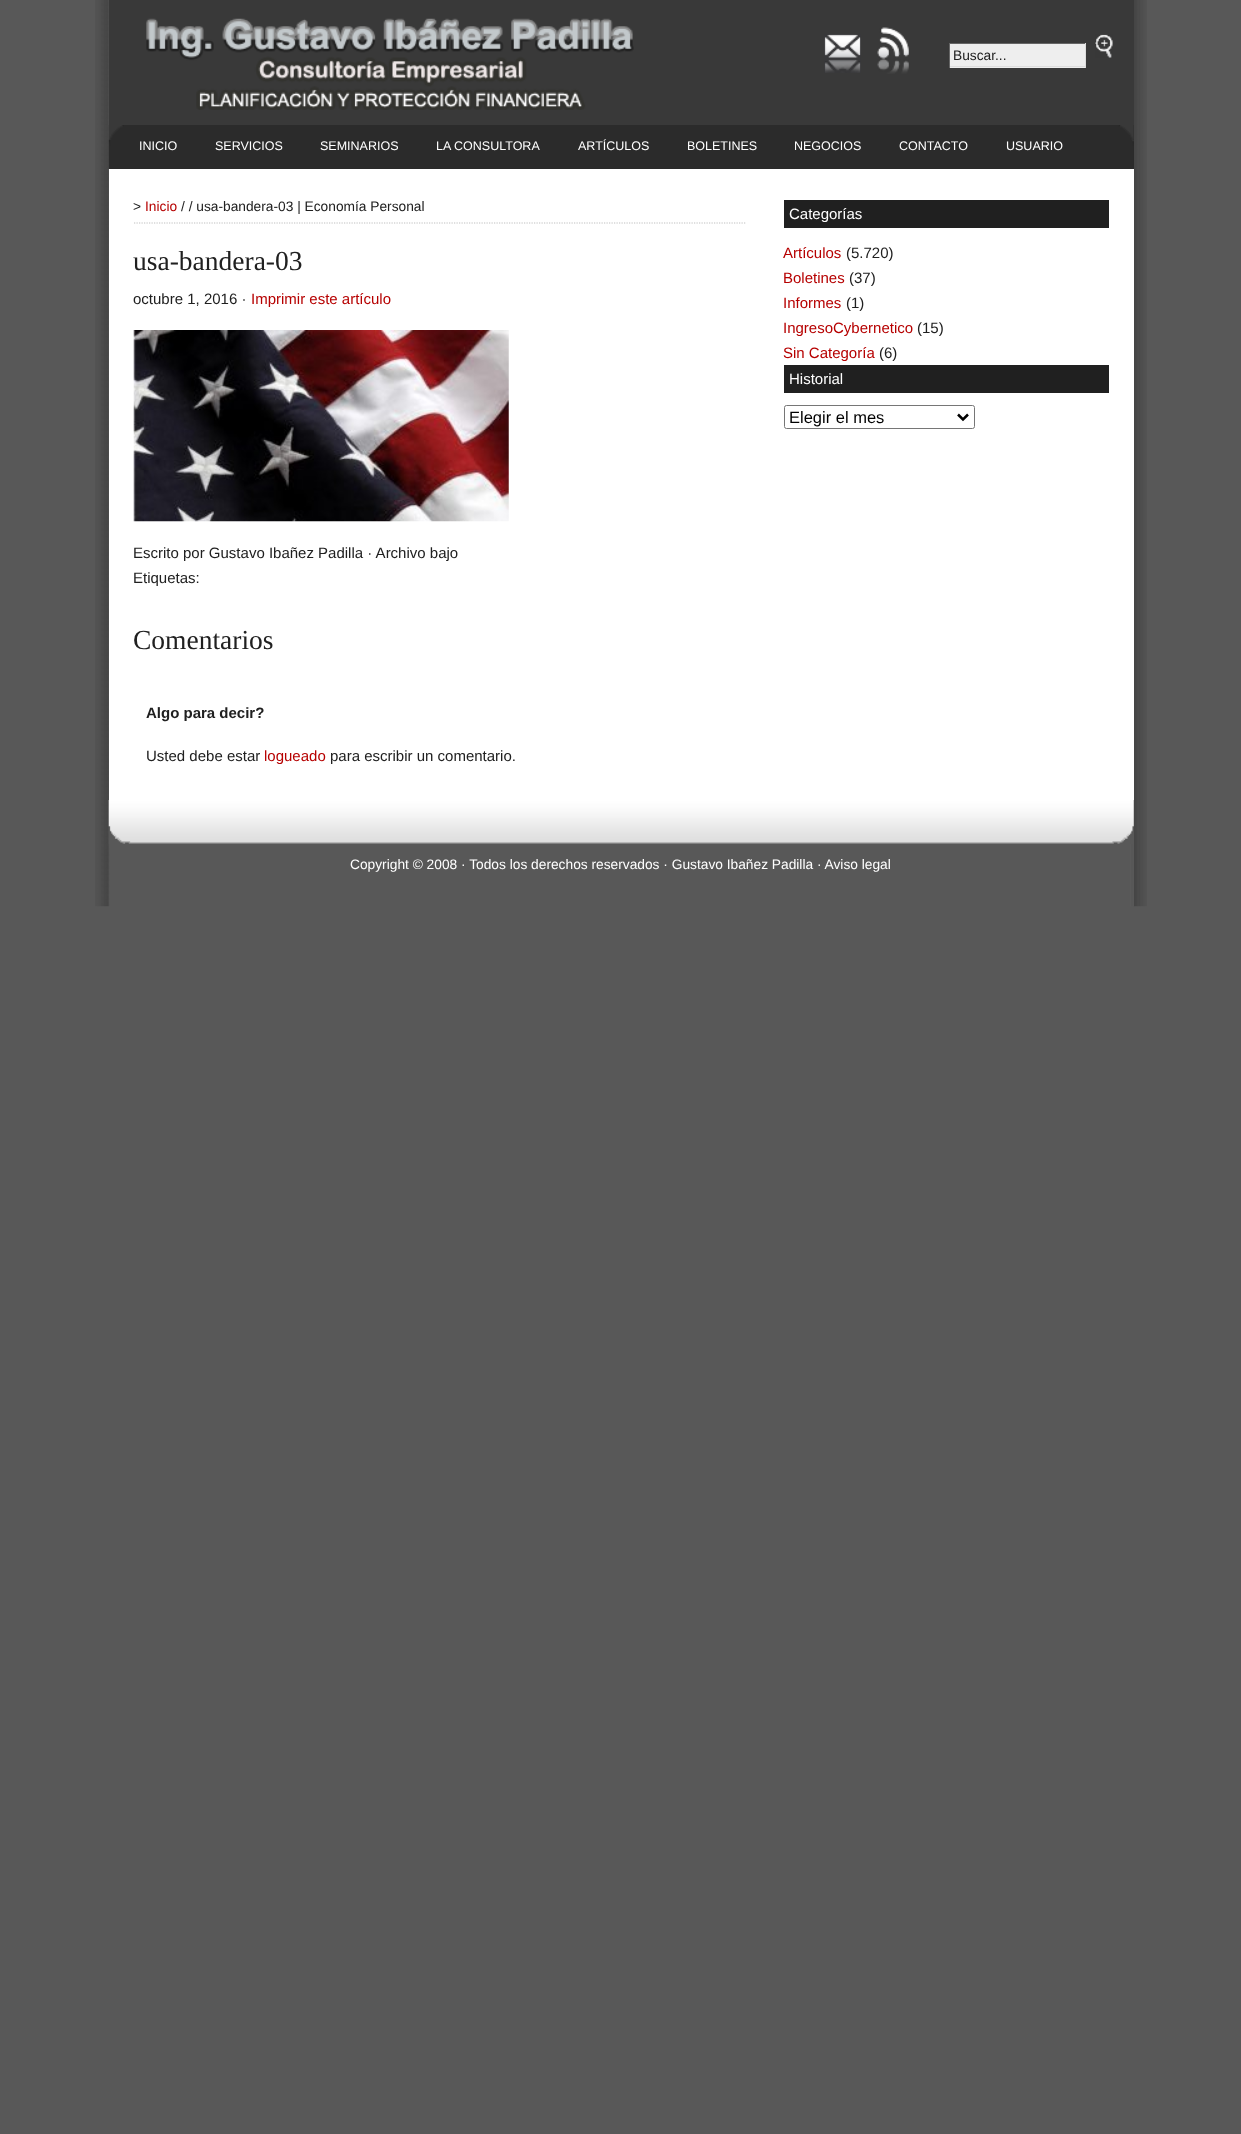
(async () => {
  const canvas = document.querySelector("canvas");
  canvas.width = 1241;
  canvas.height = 2134;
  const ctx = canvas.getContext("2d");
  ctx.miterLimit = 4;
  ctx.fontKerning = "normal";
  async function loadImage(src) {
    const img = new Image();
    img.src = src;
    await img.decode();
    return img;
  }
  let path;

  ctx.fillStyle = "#585858";
  ctx.fillRect(0, 0, 1241, 2134);
  ctx.drawImage(await loadImage("img/1.png"), 95, 0, 1052, 907);
  ctx.fillStyle = "#ffffff";
  ctx.fillRect(109, 169, 1025, 631);
  ctx.fillStyle = "#393939";
  ctx.fillRect(109, 0, 1025, 125);
  ctx.drawImage(await loadImage("img/2.png"), 146, 18, 488, 92);
  ctx.drawImage(await loadImage("img/3.png"), 824, 34, 37, 39);
  ctx.drawImage(await loadImage("img/4.png"), 877, 27, 32, 47);
  for (const [x, y, w, h, color] of [
    [950, 44, 135, 24, "#eeeeee"],
    [949, 43, 137, 1, "#666666"],
    [1085, 43, 1, 25, "#dddddd"],
    [949, 66, 137, 1, "#dddddd"],
    [949, 43, 1, 25, "#666666"],
  ]) {
    ctx.fillStyle = color;
    ctx.fillRect(x, y, w, h);
  }
  ctx.drawImage(await loadImage("img/5.png"), 1095, 34, 18, 24);
  ctx.fillStyle = "#2b2b2b";
  ctx.fillRect(109, 125, 1025, 44);
  ctx.drawImage(await loadImage("img/6.png"), 108, 125, 1026, 44);
  path = new Path2D("M134 223H746");
  ctx.strokeStyle = "#c0c0c0";
  ctx.lineWidth = 1.2;
  ctx.setLineDash([1.25, 1.25]);
  ctx.stroke(path);
  ctx.drawImage(await loadImage("img/7.png"), 133, 330, 376, 192);
  ctx.fillStyle = "#202020";
  ctx.fillRect(784, 200, 325, 28);
  ctx.fillRect(784, 365, 325, 28);
  ctx.beginPath();
  ctx.roundRect(784.5, 405.5, 190, 23, 2);
  ctx.strokeStyle = "#767676";
  ctx.lineWidth = 1;
  ctx.setLineDash([]);
  ctx.stroke();
  path = new Path2D("M958 414.5L963 419.5L968 414.5");
  ctx.strokeStyle = "#000000";
  ctx.lineWidth = 2.5;
  ctx.stroke(path);
  ctx.fillStyle = "#585858";
  ctx.fillRect(1133, 800, 1, 106);
  ctx.drawImage(await loadImage("img/8.png"), 108, 800, 1026, 44);
  ctx.font = "13.75px Liberation Sans";
  ctx.fillStyle = "#202020";
  ctx.fillText("Buscar...", 953, 60);
  ctx.font = "12.5px Liberation Sans";
  ctx.fillStyle = "#ffffff";
  for (const [text, x, y] of [
    ["INICIO", 139, 150],
    ["SERVICIOS", 215, 150],
    ["SEMINARIOS", 320, 150],
    ["LA CONSULTORA", 436, 150],
    ["ARTÍCULOS", 578, 150],
    ["BOLETINES", 687, 150],
    ["NEGOCIOS", 794, 150],
    ["CONTACTO", 899, 150],
    ["USUARIO", 1006, 150],
  ]) {
    ctx.fillText(text, x, y);
  }
  ctx.font = "13.75px Liberation Sans";
  ctx.fillStyle = "#202020";
  ctx.fillText(">", 133, 211);
  ctx.fillStyle = "#b60000";
  ctx.fillText("Inicio", 145, 211);
  ctx.fillStyle = "#202020";
  ctx.fillText("/ / usa-bandera-03 | Economía Personal", 181, 211);
  ctx.font = "27.5px Liberation Serif";
  ctx.fillText("usa-bandera-03", 133, 270);
  ctx.font = "15px Liberation Sans";
  ctx.fillText("octubre 1, 2016 ·", 133, 304);
  ctx.fillStyle = "#b60000";
  ctx.fillText("Imprimir este artículo", 251, 304);
  ctx.fillStyle = "#202020";
  ctx.fillText("Escrito por Gustavo Ibañez Padilla · Archivo bajo", 133, 558);
  ctx.fillText("Etiquetas:", 133, 583);
  ctx.font = "27.5px Liberation Serif";
  ctx.fillText("Comentarios", 133, 649);
  ctx.font = "bold 15px Liberation Sans";
  ctx.fillText("Algo para decir?", 146, 718);
  ctx.font = "15px Liberation Sans";
  ctx.fillText("Usted debe estar", 146, 761);
  ctx.fillStyle = "#b60000";
  ctx.fillText("logueado", 264, 761);
  ctx.fillStyle = "#202020";
  ctx.fillText("para escribir un comentario.", 330, 761);
  ctx.fillStyle = "#ffffff";
  ctx.fillText("Categorías", 789, 219);
  ctx.fillStyle = "#b60000";
  ctx.fillText("Artículos", 783, 258);
  ctx.fillStyle = "#202020";
  ctx.fillText("(5.720)", 846, 258);
  ctx.fillStyle = "#b60000";
  ctx.fillText("Boletines", 783, 283);
  ctx.fillStyle = "#202020";
  ctx.fillText("(37)", 849, 283);
  ctx.fillStyle = "#b60000";
  ctx.fillText("Informes", 783, 308);
  ctx.fillStyle = "#202020";
  ctx.fillText("(1)", 846, 308);
  ctx.fillStyle = "#b60000";
  ctx.fillText("IngresoCybernetico", 783, 333);
  ctx.fillStyle = "#202020";
  ctx.fillText("(15)", 917, 333);
  ctx.fillStyle = "#b60000";
  ctx.fillText("Sin Categoría", 783, 358);
  ctx.fillStyle = "#202020";
  ctx.fillText("(6)", 879, 358);
  ctx.fillStyle = "#ffffff";
  ctx.fillText("Historial", 789, 384);
  ctx.font = "16.5px Liberation Sans";
  ctx.fillStyle = "#000000";
  ctx.fillText("Elegir el mes", 789, 423);
  ctx.font = "13.75px Liberation Sans";
  ctx.fillStyle = "#ffffff";
  ctx.fillText("Copyright © 2008 · Todos los derechos reservados · Gustavo Ibañez Padilla · Aviso legal", 350, 869);
})();
